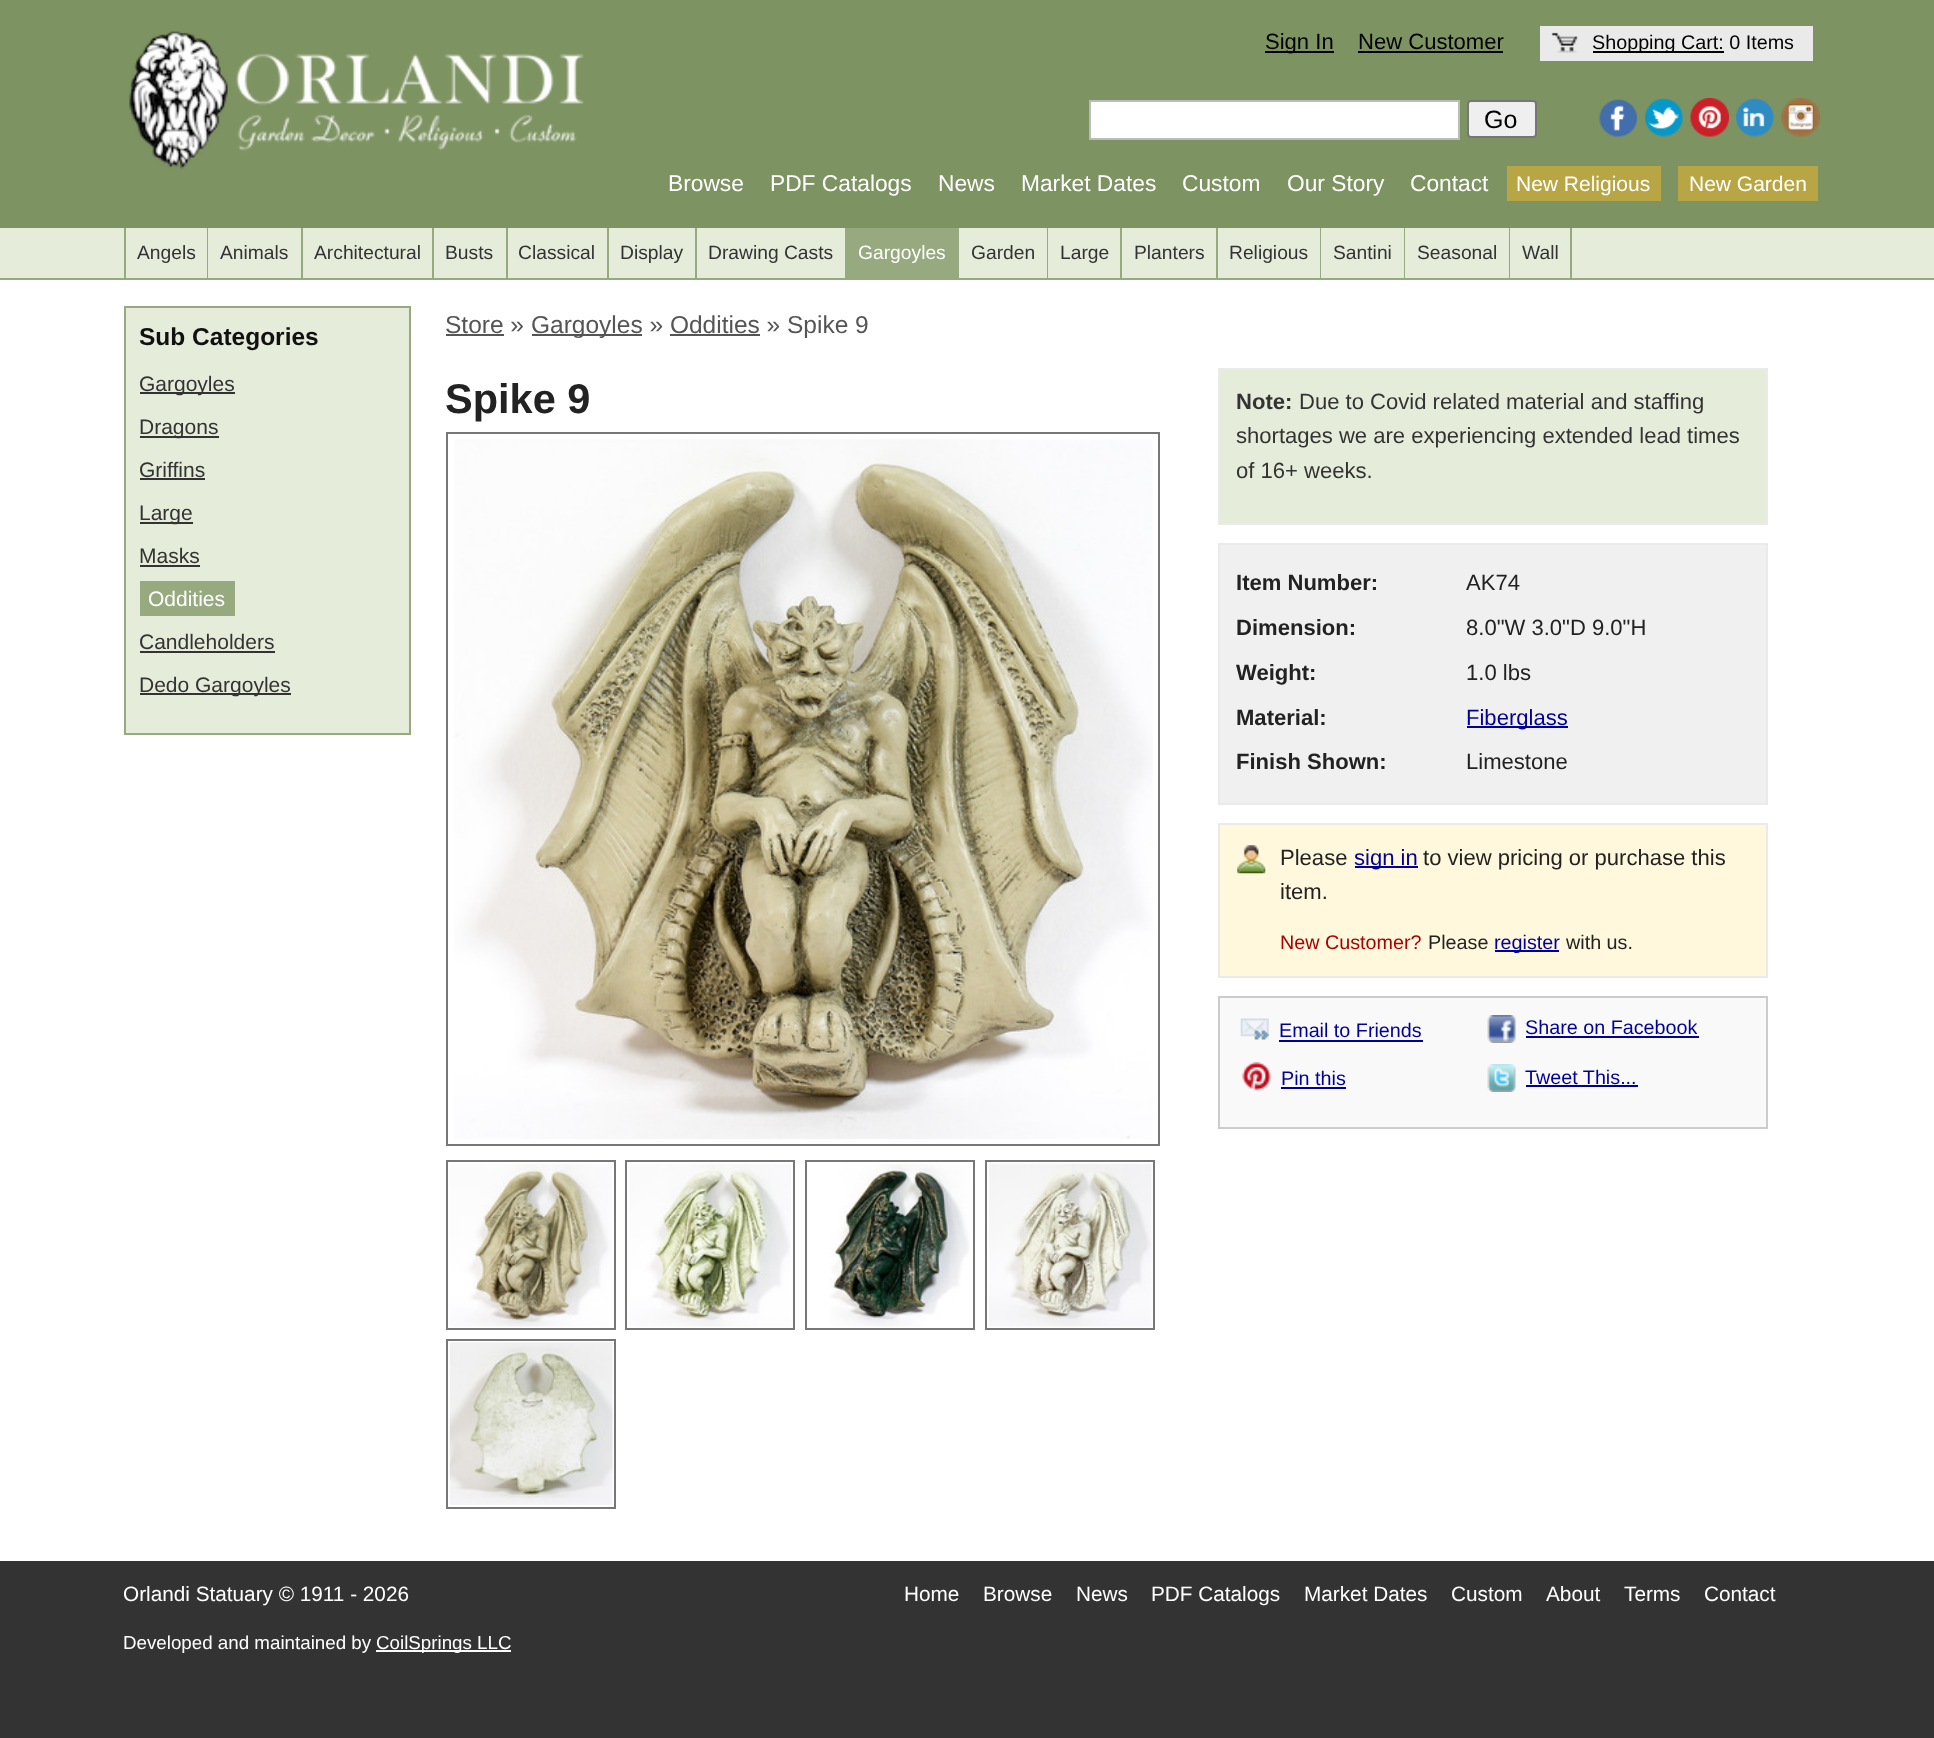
(async () => {
  const canvas = document.querySelector("canvas");
  canvas.width = 1934;
  canvas.height = 1738;
  const ctx = canvas.getContext("2d");
  ctx.miterLimit = 4;
  ctx.fontKerning = "normal";
  async function loadImage(src) {
    const img = new Image();
    img.src = src;
    await img.decode();
    return img;
  }

  ctx.fillStyle = "#333333";
  ctx.fillRect(0, 0, 1934, 1738);
  ctx.fillStyle = "#7e9362";
  ctx.fillRect(0, 0, 1934, 228);
  ctx.drawImage(await loadImage("img/1.png"), 129, 31, 455, 139);
  for (const [x, y, w, h, color] of [
    [1265, 51, 69, 2, "#000000"],
    [1358, 51, 145, 2, "#000000"],
    [1540, 26, 273, 35, "#eaeaea"],
  ]) {
    ctx.fillStyle = color;
    ctx.fillRect(x, y, w, h);
  }
  ctx.drawImage(await loadImage("img/2.png"), 1551, 32, 27, 21);
  ctx.fillStyle = "#000000";
  ctx.fillRect(1593, 51, 131, 2);
  ctx.fillStyle = "#ffffff";
  ctx.beginPath();
  ctx.rect(1090, 101, 369, 38);
  ctx.fill();
  ctx.strokeStyle = "#bbbbbb";
  ctx.lineWidth = 2;
  ctx.stroke();
  ctx.fillStyle = "#efefef";
  ctx.beginPath();
  ctx.roundRect(1468, 101, 68, 36, 3);
  ctx.fill();
  ctx.strokeStyle = "#767676";
  ctx.stroke();
  ctx.drawImage(await loadImage("img/3.png"), 1599, 99, 39, 38);
  ctx.drawImage(await loadImage("img/4.png"), 1645, 98, 38, 39);
  ctx.drawImage(await loadImage("img/5.png"), 1690, 98, 39, 39);
  ctx.drawImage(await loadImage("img/6.png"), 1736, 98, 38, 39);
  ctx.drawImage(await loadImage("img/7.png"), 1781, 98, 39, 39);
  for (const [x, y, w, h, color] of [
    [1507, 166, 154, 35, "#b8a644"],
    [1678, 166, 140, 35, "#b8a644"],
    [0, 228, 1934, 50, "#e5edda"],
    [0, 278, 1934, 2, "#97aa7f"],
    [124, 228, 2, 50, "#97aa7f"],
    [207, 228, 1, 50, "#97aa7f"],
    [301, 228, 2, 50, "#97aa7f"],
    [432, 228, 2, 50, "#97aa7f"],
    [506, 228, 2, 50, "#97aa7f"],
    [607, 228, 2, 50, "#97aa7f"],
    [695, 228, 2, 50, "#97aa7f"],
    [845, 228, 114, 50, "#97aa7f"],
    [1047, 228, 1, 50, "#97aa7f"],
    [1120, 228, 2, 50, "#97aa7f"],
    [1216, 228, 2, 50, "#97aa7f"],
    [1320, 228, 1, 50, "#97aa7f"],
    [1404, 228, 1, 50, "#97aa7f"],
    [1509, 228, 1, 50, "#97aa7f"],
    [1570, 228, 2, 50, "#97aa7f"],
    [0, 280, 1934, 1281, "#ffffff"],
  ]) {
    ctx.fillStyle = color;
    ctx.fillRect(x, y, w, h);
  }
  ctx.fillStyle = "#e5edda";
  ctx.beginPath();
  ctx.rect(125, 307, 285, 427);
  ctx.fill();
  ctx.strokeStyle = "#97aa7f";
  ctx.stroke();
  for (const [x, y, w, h, color] of [
    [140, 392, 95, 2, "#333333"],
    [140, 436, 79, 2, "#333333"],
    [140, 478, 65, 2, "#333333"],
    [140, 522, 53, 2, "#333333"],
    [140, 565, 60, 2, "#333333"],
    [140, 581, 95, 35, "#97aa7f"],
    [140, 651, 135, 2, "#333333"],
    [140, 693, 151, 2, "#333333"],
    [446, 334, 58, 2, "#555555"],
    [532, 334, 110, 2, "#555555"],
    [670, 334, 90, 2, "#555555"],
  ]) {
    ctx.fillStyle = color;
    ctx.fillRect(x, y, w, h);
  }
  ctx.strokeStyle = "#777777";
  ctx.strokeRect(447, 433, 712, 712);
  ctx.drawImage(await loadImage("img/8.png"), 454, 439, 699, 700);
  ctx.strokeRect(447, 1161, 168, 168);
  ctx.strokeRect(626, 1161, 168, 168);
  ctx.strokeRect(806, 1161, 168, 168);
  ctx.strokeRect(986, 1161, 168, 168);
  ctx.drawImage(await loadImage("img/9.png"), 450, 1164, 162, 163);
  ctx.drawImage(await loadImage("img/10.png"), 629, 1164, 162, 163);
  ctx.drawImage(await loadImage("img/11.png"), 829, 1164, 141, 163);
  ctx.drawImage(await loadImage("img/12.png"), 989, 1163, 163, 164);
  ctx.strokeRect(447, 1340, 168, 168);
  ctx.drawImage(await loadImage("img/13.png"), 449, 1342, 164, 163);
  ctx.fillStyle = "#e5edda";
  ctx.beginPath();
  ctx.rect(1219, 369, 548, 155);
  ctx.fill();
  ctx.strokeStyle = "#eaeaea";
  ctx.stroke();
  ctx.fillStyle = "#f0f0f0";
  ctx.beginPath();
  ctx.rect(1219, 544, 548, 260);
  ctx.fill();
  ctx.stroke();
  ctx.fillStyle = "#000099";
  ctx.fillRect(1467, 726, 101, 2);
  ctx.fillStyle = "#fff8dc";
  ctx.fillRect(1220, 825, 546, 151);
  ctx.drawImage(await loadImage("img/14.png"), 1237, 845, 29, 29);
  ctx.strokeRect(1219, 824, 548, 153);
  ctx.fillStyle = "#000099";
  ctx.fillRect(1355, 866, 63, 2);
  ctx.fillRect(1495, 950, 64, 2);
  ctx.fillStyle = "#f9f9f9";
  ctx.beginPath();
  ctx.rect(1219, 997, 548, 131);
  ctx.fill();
  ctx.strokeStyle = "#cccccc";
  ctx.stroke();
  ctx.drawImage(await loadImage("img/15.png"), 1240, 1018, 29, 22);
  ctx.fillStyle = "#000099";
  ctx.fillRect(1279, 1040, 144, 2);
  ctx.drawImage(await loadImage("img/16.png"), 1487, 1015, 29, 28);
  ctx.fillRect(1526, 1036, 173, 2);
  ctx.drawImage(await loadImage("img/17.png"), 1242, 1062, 29, 29);
  ctx.fillRect(1281, 1087, 65, 2);
  ctx.drawImage(await loadImage("img/18.png"), 1487, 1064, 29, 28);
  ctx.fillRect(1526, 1085, 112, 2);
  ctx.fillStyle = "#ffffff";
  ctx.fillRect(376, 1650, 135, 2);
  ctx.font = "22.05px Liberation Sans";
  ctx.fillStyle = "#000000";
  ctx.fillText("Sign In", 1265, 49);
  ctx.fillText("New Customer", 1358, 49);
  ctx.font = "19.75px Liberation Sans";
  ctx.fillText("Shopping Cart: 0 Items", 1592, 49);
  ctx.font = "25px Liberation Sans";
  ctx.fillText("Go", 1484, 128);
  ctx.font = "22.75px Liberation Sans";
  ctx.fillStyle = "#ffffff";
  for (const [text, x, y] of [
    ["Browse", 668, 191],
    ["PDF Catalogs", 770, 191],
    ["News", 938, 191],
    ["Market Dates", 1021, 191],
    ["Custom", 1182, 191],
    ["Our Story", 1287, 191],
    ["Contact", 1410, 191],
  ]) {
    ctx.fillText(text, x, y);
  }
  ctx.font = "21px Liberation Sans";
  ctx.fillText("New Religious", 1516, 191);
  ctx.fillText("New Garden", 1689, 191);
  ctx.font = "19.25px Liberation Sans";
  ctx.fillStyle = "#333333";
  for (const [text, x, y] of [
    ["Angels", 137, 259],
    ["Animals", 220, 259],
    ["Architectural", 314, 259],
    ["Busts", 445, 259],
    ["Classical", 518, 259],
    ["Display", 620, 259],
    ["Drawing Casts", 708, 259],
  ]) {
    ctx.fillText(text, x, y);
  }
  ctx.fillStyle = "#ffffff";
  ctx.fillText("Gargoyles", 858, 259);
  ctx.fillStyle = "#333333";
  for (const [text, x, y] of [
    ["Garden", 971, 259],
    ["Large", 1060, 259],
    ["Planters", 1134, 259],
    ["Religious", 1229, 259],
    ["Santini", 1333, 259],
    ["Seasonal", 1417, 259],
    ["Wall", 1522, 259],
  ]) {
    ctx.fillText(text, x, y);
  }
  ctx.font = "bold 24.5px Liberation Sans";
  ctx.fillStyle = "#111111";
  ctx.fillText("Sub Categories", 139, 345);
  ctx.font = "21px Liberation Sans";
  ctx.fillStyle = "#333333";
  for (const [text, x, y] of [
    ["Gargoyles", 139, 391],
    ["Dragons", 139, 434],
    ["Griffins", 139, 477],
    ["Large", 139, 520],
    ["Masks", 139, 563],
  ]) {
    ctx.fillText(text, x, y);
  }
  ctx.fillStyle = "#ffffff";
  ctx.fillText("Oddities", 148, 606);
  ctx.fillStyle = "#333333";
  ctx.fillText("Candleholders", 139, 649);
  ctx.fillText("Dedo Gargoyles", 139, 692);
  ctx.font = "24.5px Liberation Sans";
  ctx.fillStyle = "#555555";
  ctx.fillText("Store »", 445, 333);
  ctx.fillText("Gargoyles » Oddities » Spike 9", 531, 333);
  ctx.font = "bold 41.5px Liberation Sans";
  ctx.fillStyle = "#222222";
  ctx.fillText("Spike 9", 445, 413);
  ctx.font = "bold 22.05px Liberation Sans";
  ctx.fillStyle = "#333333";
  ctx.fillText("Note:", 1236, 409);
  ctx.font = "22.05px Liberation Sans";
  for (const [text, x, y] of [
    ["Due to Covid related material and staffing", 1299, 409],
    ["shortages we are experiencing extended lead times", 1236, 443],
    ["of 16+ weeks.", 1236, 478],
  ]) {
    ctx.fillText(text, x, y);
  }
  ctx.font = "bold 22.05px Liberation Sans";
  ctx.fillStyle = "#222222";
  ctx.fillText("Item Number:", 1236, 590);
  ctx.font = "22.05px Liberation Sans";
  ctx.fillText("AK74", 1466, 590);
  ctx.font = "bold 22.05px Liberation Sans";
  ctx.fillText("Dimension:", 1236, 635);
  ctx.font = "22.05px Liberation Sans";
  ctx.fillText("8.0\"W 3.0\"D 9.0\"H", 1466, 635);
  ctx.font = "bold 22.05px Liberation Sans";
  ctx.fillText("Weight:", 1236, 680);
  ctx.font = "22.05px Liberation Sans";
  ctx.fillText("1.0 lbs", 1466, 680);
  ctx.font = "bold 22.05px Liberation Sans";
  ctx.fillText("Material:", 1236, 725);
  ctx.font = "22.05px Liberation Sans";
  ctx.fillStyle = "#000099";
  ctx.fillText("Fiberglass", 1466, 725);
  ctx.font = "bold 22.05px Liberation Sans";
  ctx.fillStyle = "#222222";
  ctx.fillText("Finish Shown:", 1236, 769);
  ctx.font = "22.05px Liberation Sans";
  ctx.fillText("Limestone", 1466, 769);
  ctx.fillText("Please", 1280, 865);
  ctx.fillStyle = "#000099";
  ctx.fillText("sign in", 1354, 865);
  ctx.fillStyle = "#222222";
  ctx.fillText("to view pricing or purchase this", 1423, 865);
  ctx.fillText("item.", 1280, 899);
  ctx.font = "19.75px Liberation Sans";
  ctx.fillStyle = "#aa0000";
  ctx.fillText("New Customer?", 1280, 949);
  ctx.fillStyle = "#222222";
  ctx.fillText("Please", 1428, 949);
  ctx.fillStyle = "#000099";
  ctx.fillText("register", 1494, 949);
  ctx.fillStyle = "#222222";
  ctx.fillText("with us.", 1566, 949);
  ctx.fillStyle = "#000099";
  for (const [text, x, y] of [
    ["Email to Friends", 1279, 1037],
    ["Share on Facebook", 1525, 1034],
    ["Pin this", 1281, 1085],
    ["Tweet This...", 1525, 1084],
  ]) {
    ctx.fillText(text, x, y);
  }
  ctx.font = "20.75px Liberation Sans";
  ctx.fillStyle = "#ffffff";
  ctx.fillText("Orlandi Statuary © 1911 - 2026", 123, 1601);
  ctx.font = "18.75px Liberation Sans";
  ctx.fillText("Developed and maintained by", 123, 1649);
  ctx.fillText("CoilSprings LLC", 376, 1649);
  ctx.font = "20.75px Liberation Sans";
  for (const [text, x, y] of [
    ["Home", 904, 1601],
    ["Browse", 983, 1601],
    ["News", 1076, 1601],
    ["PDF Catalogs", 1151, 1601],
    ["Market Dates", 1304, 1601],
    ["Custom", 1451, 1601],
    ["About", 1546, 1601],
    ["Terms", 1624, 1601],
    ["Contact", 1704, 1601],
  ]) {
    ctx.fillText(text, x, y);
  }
})();
